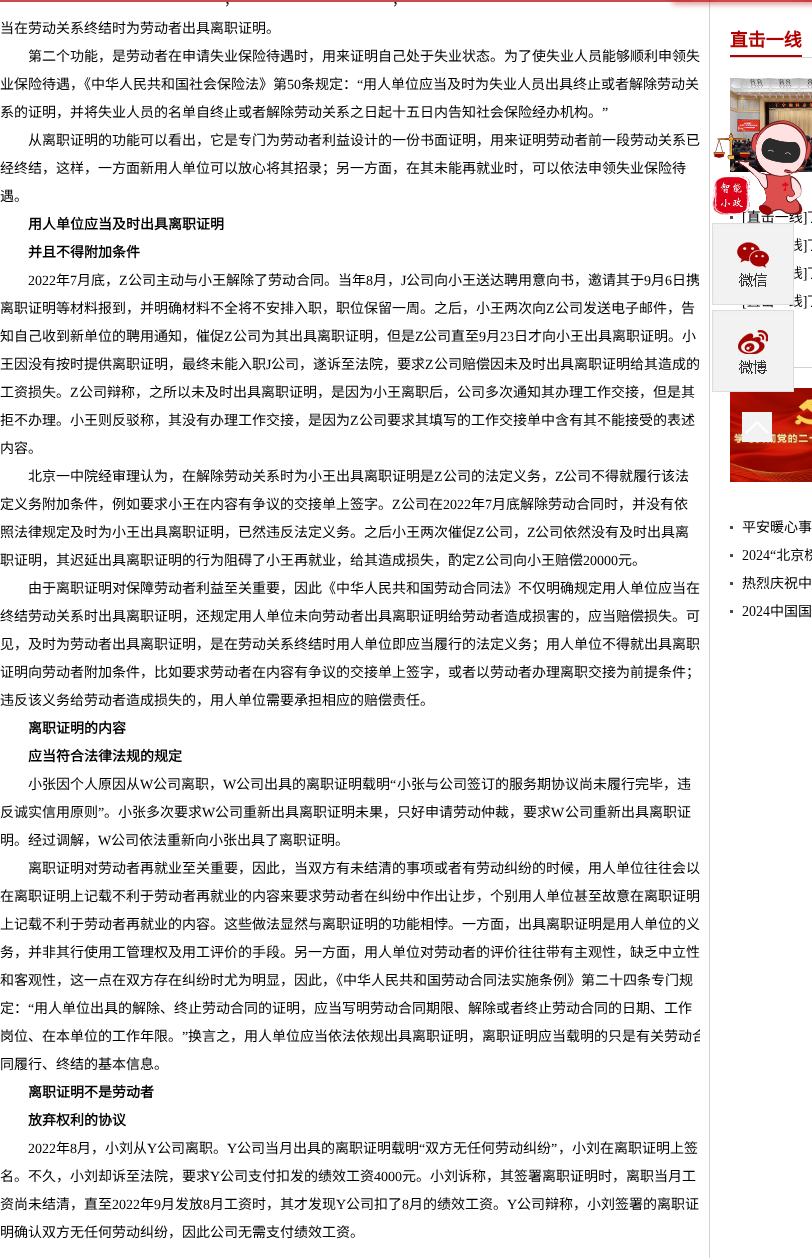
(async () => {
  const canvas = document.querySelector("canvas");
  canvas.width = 812;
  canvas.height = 1258;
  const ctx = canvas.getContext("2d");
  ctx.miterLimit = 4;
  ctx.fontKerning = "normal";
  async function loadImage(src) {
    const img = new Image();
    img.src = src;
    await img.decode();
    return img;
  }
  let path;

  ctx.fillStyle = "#ffffff";
  ctx.fillRect(0, 0, 812, 1258);
  ctx.fillStyle = "#d2d2d2";
  ctx.fillRect(709, 0, 1, 1258);
  ctx.drawImage(await loadImage("img/1.png"), 730, 30, 82, 588);
  ctx.drawImage(await loadImage("img/2.png"), 712, 120, 100, 95);
  ctx.drawImage(await loadImage("img/3.png"), 712, 223, 82, 82);
  ctx.drawImage(await loadImage("img/4.png"), 712, 310, 82, 82);
  ctx.drawImage(await loadImage("img/5.png"), 742, 412, 30, 30);
  ctx.font = "14px Noto Sans CJK SC";
  ctx.fillStyle = "#000000";
  ctx.fillText("，", 224, 5);
  ctx.fillText("，", 392, 5);
  ctx.fillStyle = "rgba(182, 0, 1, 0.71)";
  ctx.fillRect(0, 0, 812, 2);
  ctx.save();
  path = new Path2D("M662 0H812V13H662ZM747 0C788.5 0 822 .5 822 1C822 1.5 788.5 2 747 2C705.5 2 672 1.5 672 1C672 .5 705.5 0 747 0Z");
  ctx.clip(path, "evenodd");
  ctx.filter = "blur(3px)";
  ctx.beginPath();
  ctx.roundRect(672, -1, 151, 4, 2);
  ctx.fill();
  ctx.filter = "none";
  ctx.restore();
  ctx.fillStyle = "#000000";
  for (const [text, x, y] of [
    ["当在劳动关系终结时为劳动者出具离职证明。", 0, 33],
    ["第二个功能，是劳动者在申请失业保险待遇时，用来证明自己处于失业状态。为了使失业人员能够顺利申领失", 28, 61],
    ["业保险待遇，《中华人民共和国社会保险法》第", 0, 89],
  ]) {
    ctx.fillText(text, x, y);
  }
  ctx.font = "14px Liberation Serif";
  ctx.fillText("50", 287, 89);
  ctx.font = "14px Noto Sans CJK SC";
  ctx.fillText("条规定：", 301, 89);
  ctx.font = "14px Liberation Serif";
  ctx.fillText("“", 357, 89);
  ctx.font = "14px Noto Sans CJK SC";
  ctx.fillText("用人单位应当及时为失业人员出具终止或者解除劳动关", 363, 89);
  ctx.fillText("系的证明，并将失业人员的名单自终止或者解除劳动关系之日起十五日内告知社会保险经办机构。", 0, 117);
  ctx.font = "14px Liberation Serif";
  ctx.fillText("”", 602, 117);
  ctx.font = "14px Noto Sans CJK SC";
  for (const [text, x, y] of [
    ["从离职证明的功能可以看出，它是专门为劳动者利益设计的一份书面证明，用来证明劳动者前一段劳动关系已", 28, 145],
    ["经终结，这样，一方面新用人单位可以放心将其招录；另一方面，在其未能再就业时，可以依法申领失业保险待", 0, 173],
    ["遇。", 0, 201],
  ]) {
    ctx.fillText(text, x, y);
  }
  ctx.font = "bold 14px Noto Sans CJK SC";
  ctx.fillText("用人单位应当及时出具离职证明", 28, 229);
  ctx.fillText("并且不得附加条件", 28, 257);
  ctx.font = "14px Liberation Serif";
  ctx.fillText("2022", 28, 285);
  ctx.font = "14px Noto Sans CJK SC";
  ctx.fillText("年", 56, 285);
  ctx.font = "14px Liberation Serif";
  ctx.fillText("7", 70, 285);
  ctx.font = "14px Noto Sans CJK SC";
  ctx.fillText("月底，", 77, 285);
  ctx.font = "14px Liberation Serif";
  ctx.fillText("Z", 119, 285);
  ctx.font = "14px Noto Sans CJK SC";
  ctx.fillText("公司主动与小王解除了劳动合同。当年", 128, 285);
  ctx.font = "14px Liberation Serif";
  ctx.fillText("8", 366, 285);
  ctx.font = "14px Noto Sans CJK SC";
  ctx.fillText("月，", 373, 285);
  ctx.font = "14px Liberation Serif";
  ctx.fillText("J", 401, 285);
  ctx.font = "14px Noto Sans CJK SC";
  ctx.fillText("公司向小王送达聘用意向书，邀请其于", 406, 285);
  ctx.font = "14px Liberation Serif";
  ctx.fillText("9", 644, 285);
  ctx.font = "14px Noto Sans CJK SC";
  ctx.fillText("月", 651, 285);
  ctx.font = "14px Liberation Serif";
  ctx.fillText("6", 665, 285);
  ctx.font = "14px Noto Sans CJK SC";
  ctx.fillText("日携", 672, 285);
  ctx.fillText("离职证明等材料报到，并明确材料不全将不安排入职，职位保留一周。之后，小王两次向", 0, 313);
  ctx.font = "14px Liberation Serif";
  ctx.fillText("Z", 546, 313);
  ctx.font = "14px Noto Sans CJK SC";
  ctx.fillText("公司发送电子邮件，告", 555, 313);
  ctx.fillText("知自己收到新单位的聘用通知，催促", 0, 341);
  ctx.font = "14px Liberation Serif";
  ctx.fillText("Z", 224, 341);
  ctx.font = "14px Noto Sans CJK SC";
  ctx.fillText("公司为其出具离职证明，但是", 233, 341);
  ctx.font = "14px Liberation Serif";
  ctx.fillText("Z", 415, 341);
  ctx.font = "14px Noto Sans CJK SC";
  ctx.fillText("公司直至", 423, 341);
  ctx.font = "14px Liberation Serif";
  ctx.fillText("9", 479, 341);
  ctx.font = "14px Noto Sans CJK SC";
  ctx.fillText("月", 486, 341);
  ctx.font = "14px Liberation Serif";
  ctx.fillText("23", 500, 341);
  ctx.font = "14px Noto Sans CJK SC";
  ctx.fillText("日才向小王出具离职证明。小", 514, 341);
  ctx.fillText("王因没有按时提供离职证明，最终未能入职", 0, 369);
  ctx.font = "14px Liberation Serif";
  ctx.fillText("J", 266, 369);
  ctx.font = "14px Noto Sans CJK SC";
  ctx.fillText("公司，遂诉至法院，要求", 271, 369);
  ctx.font = "14px Liberation Serif";
  ctx.fillText("Z", 425, 369);
  ctx.font = "14px Noto Sans CJK SC";
  ctx.fillText("公司赔偿因未及时出具离职证明给其造成的", 434, 369);
  ctx.fillText("工资损失。", 0, 397);
  ctx.font = "14px Liberation Serif";
  ctx.fillText("Z", 70, 397);
  ctx.font = "14px Noto Sans CJK SC";
  ctx.fillText("公司辩称，之所以未及时出具离职证明，是因为小王离职后，公司多次通知其办理工作交接，但是其", 79, 397);
  ctx.fillText("拒不办理。小王则反驳称，其没有办理工作交接，是因为", 0, 425);
  ctx.font = "14px Liberation Serif";
  ctx.fillText("Z", 350, 425);
  ctx.font = "14px Noto Sans CJK SC";
  for (const [text, x, y] of [
    ["公司要求其填写的工作交接单中含有其不能接受的表述", 359, 425],
    ["内容。", 0, 453],
    ["北京一中院经审理认为，在解除劳动关系时为小王出具离职证明是", 28, 481],
  ]) {
    ctx.fillText(text, x, y);
  }
  ctx.font = "14px Liberation Serif";
  ctx.fillText("Z", 434, 481);
  ctx.font = "14px Noto Sans CJK SC";
  ctx.fillText("公司的法定义务，", 443, 481);
  ctx.font = "14px Liberation Serif";
  ctx.fillText("Z", 555, 481);
  ctx.font = "14px Noto Sans CJK SC";
  ctx.fillText("公司不得就履行该法", 563, 481);
  ctx.fillText("定义务附加条件，例如要求小王在内容有争议的交接单上签字。", 0, 509);
  ctx.font = "14px Liberation Serif";
  ctx.fillText("Z", 392, 509);
  ctx.font = "14px Noto Sans CJK SC";
  ctx.fillText("公司在", 401, 509);
  ctx.font = "14px Liberation Serif";
  ctx.fillText("2022", 443, 509);
  ctx.font = "14px Noto Sans CJK SC";
  ctx.fillText("年", 471, 509);
  ctx.font = "14px Liberation Serif";
  ctx.fillText("7", 485, 509);
  ctx.font = "14px Noto Sans CJK SC";
  ctx.fillText("月底解除劳动合同时，并没有依", 492, 509);
  ctx.fillText("照法律规定及时为小王出具离职证明，已然违反法定义务。之后小王两次催促", 0, 537);
  ctx.font = "14px Liberation Serif";
  ctx.fillText("Z", 476, 537);
  ctx.font = "14px Noto Sans CJK SC";
  ctx.fillText("公司，", 485, 537);
  ctx.font = "14px Liberation Serif";
  ctx.fillText("Z", 527, 537);
  ctx.font = "14px Noto Sans CJK SC";
  ctx.fillText("公司依然没有及时出具离", 535, 537);
  ctx.fillText("职证明，其迟延出具离职证明的行为阻碍了小王再就业，给其造成损失，酌定", 0, 565);
  ctx.font = "14px Liberation Serif";
  ctx.fillText("Z", 476, 565);
  ctx.font = "14px Noto Sans CJK SC";
  ctx.fillText("公司向小王赔偿", 485, 565);
  ctx.font = "14px Liberation Serif";
  ctx.fillText("20000", 583, 565);
  ctx.font = "14px Noto Sans CJK SC";
  for (const [text, x, y] of [
    ["元。", 618, 565],
    ["由于离职证明对保障劳动者利益至关重要，因此《中华人民共和国劳动合同法》不仅明确规定用人单位应当在", 28, 593],
    ["终结劳动关系时出具离职证明，还规定用人单位未向劳动者出具离职证明给劳动者造成损害的，应当赔偿损失。可", 0, 621],
    ["见，及时为劳动者出具离职证明，是在劳动关系终结时用人单位即应当履行的法定义务；用人单位不得就出具离职", 0, 649],
    ["证明向劳动者附加条件，比如要求劳动者在内容有争议的交接单上签字，或者以劳动者办理离职交接为前提条件；", 0, 677],
    ["违反该义务给劳动者造成损失的，用人单位需要承担相应的赔偿责任。", 0, 705],
  ]) {
    ctx.fillText(text, x, y);
  }
  ctx.font = "bold 14px Noto Sans CJK SC";
  ctx.fillText("离职证明的内容", 28, 733);
  ctx.fillText("应当符合法律法规的规定", 28, 761);
  ctx.font = "14px Noto Sans CJK SC";
  ctx.fillText("小张因个人原因从", 28, 789);
  ctx.font = "14px Liberation Serif";
  ctx.fillText("W", 140, 789);
  ctx.font = "14px Noto Sans CJK SC";
  ctx.fillText("公司离职，", 153, 789);
  ctx.font = "14px Liberation Serif";
  ctx.fillText("W", 223, 789);
  ctx.font = "14px Noto Sans CJK SC";
  ctx.fillText("公司出具的离职证明载明", 236, 789);
  ctx.font = "14px Liberation Serif";
  ctx.fillText("“", 390, 789);
  ctx.font = "14px Noto Sans CJK SC";
  ctx.fillText("小张与公司签订的服务期协议尚未履行完毕，违", 397, 789);
  ctx.fillText("反诚实信用原则", 0, 817);
  ctx.font = "14px Liberation Serif";
  ctx.fillText("”", 98, 817);
  ctx.font = "14px Noto Sans CJK SC";
  ctx.fillText("。小张多次要求", 104, 817);
  ctx.font = "14px Liberation Serif";
  ctx.fillText("W", 202, 817);
  ctx.font = "14px Noto Sans CJK SC";
  ctx.fillText("公司重新出具离职证明未果，只好申请劳动仲裁，要求", 215, 817);
  ctx.font = "14px Liberation Serif";
  ctx.fillText("W", 551, 817);
  ctx.font = "14px Noto Sans CJK SC";
  ctx.fillText("公司重新出具离职证", 565, 817);
  ctx.fillText("明。经过调解，", 0, 845);
  ctx.font = "14px Liberation Serif";
  ctx.fillText("W", 98, 845);
  ctx.font = "14px Noto Sans CJK SC";
  for (const [text, x, y] of [
    ["公司依法重新向小张出具了离职证明。", 111, 845],
    ["离职证明对劳动者再就业至关重要，因此，当双方有未结清的事项或者有劳动纠纷的时候，用人单位往往会以", 28, 873],
    ["在离职证明上记载不利于劳动者再就业的内容来要求劳动者在纠纷中作出让步，个别用人单位甚至故意在离职证明", 0, 901],
    ["上记载不利于劳动者再就业的内容。这些做法显然与离职证明的功能相悖。一方面，出具离职证明是用人单位的义", 0, 929],
    ["务，并非其行使用工管理权及用工评价的手段。另一方面，用人单位对劳动者的评价往往带有主观性，缺乏中立性", 0, 957],
    ["和客观性，这一点在双方存在纠纷时尤为明显，因此，《中华人民共和国劳动合同法实施条例》第二十四条专门规", 0, 985],
    ["定：", 0, 1013],
  ]) {
    ctx.fillText(text, x, y);
  }
  ctx.font = "14px Liberation Serif";
  ctx.fillText("“", 28, 1013);
  ctx.font = "14px Noto Sans CJK SC";
  ctx.fillText("用人单位出具的解除、终止劳动合同的证明，应当写明劳动合同期限、解除或者终止劳动合同的日期、工作", 34, 1013);
  ctx.fillText("岗位、在本单位的工作年限。", 0, 1041);
  ctx.font = "14px Liberation Serif";
  ctx.fillText("”", 182, 1041);
  ctx.save();
  ctx.beginPath();
  ctx.rect(0, 0, 700, 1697);
  ctx.clip();
  ctx.font = "14px Noto Sans CJK SC";
  ctx.fillText("换言之，用人单位应当依法依规出具离职证明，离职证明应当载明的只是有关劳动合", 188, 1041);
  ctx.restore();
  ctx.font = "14px Noto Sans CJK SC";
  ctx.fillText("同履行、终结的基本信息。", 0, 1069);
  ctx.font = "bold 14px Noto Sans CJK SC";
  ctx.fillText("离职证明不是劳动者", 28, 1097);
  ctx.fillText("放弃权利的协议", 28, 1125);
  ctx.font = "14px Liberation Serif";
  ctx.fillText("2022", 28, 1153);
  ctx.font = "14px Noto Sans CJK SC";
  ctx.fillText("年", 56, 1153);
  ctx.font = "14px Liberation Serif";
  ctx.fillText("8", 70, 1153);
  ctx.font = "14px Noto Sans CJK SC";
  ctx.fillText("月，小刘从", 77, 1153);
  ctx.font = "14px Liberation Serif";
  ctx.fillText("Y", 147, 1153);
  ctx.font = "14px Noto Sans CJK SC";
  ctx.fillText("公司离职。", 157, 1153);
  ctx.font = "14px Liberation Serif";
  ctx.fillText("Y", 227, 1153);
  ctx.font = "14px Noto Sans CJK SC";
  ctx.fillText("公司当月出具的离职证明载明", 237, 1153);
  ctx.font = "14px Liberation Serif";
  ctx.fillText("“", 419, 1153);
  ctx.font = "14px Noto Sans CJK SC";
  ctx.fillText("双方无任何劳动纠纷", 425, 1153);
  ctx.font = "14px Liberation Serif";
  ctx.fillText("”", 551, 1153);
  ctx.font = "14px Noto Sans CJK SC";
  ctx.fillText("，小刘在离职证明上签", 558, 1153);
  ctx.fillText("名。不久，小刘却诉至法院，要求", 0, 1181);
  ctx.font = "14px Liberation Serif";
  ctx.fillText("Y", 210, 1181);
  ctx.font = "14px Noto Sans CJK SC";
  ctx.fillText("公司支付扣发的绩效工资", 220, 1181);
  ctx.font = "14px Liberation Serif";
  ctx.fillText("4000", 374, 1181);
  ctx.font = "14px Noto Sans CJK SC";
  ctx.fillText("元。小刘诉称，其签署离职证明时，离职当月工", 402, 1181);
  ctx.fillText("资尚未结清，直至", 0, 1209);
  ctx.font = "14px Liberation Serif";
  ctx.fillText("2022", 112, 1209);
  ctx.font = "14px Noto Sans CJK SC";
  ctx.fillText("年", 140, 1209);
  ctx.font = "14px Liberation Serif";
  ctx.fillText("9", 154, 1209);
  ctx.font = "14px Noto Sans CJK SC";
  ctx.fillText("月发放", 161, 1209);
  ctx.font = "14px Liberation Serif";
  ctx.fillText("8", 203, 1209);
  ctx.font = "14px Noto Sans CJK SC";
  ctx.fillText("月工资时，其才发现", 210, 1209);
  ctx.font = "14px Liberation Serif";
  ctx.fillText("Y", 336, 1209);
  ctx.font = "14px Noto Sans CJK SC";
  ctx.fillText("公司扣了", 346, 1209);
  ctx.font = "14px Liberation Serif";
  ctx.fillText("8", 402, 1209);
  ctx.font = "14px Noto Sans CJK SC";
  ctx.fillText("月的绩效工资。", 409, 1209);
  ctx.font = "14px Liberation Serif";
  ctx.fillText("Y", 507, 1209);
  ctx.font = "14px Noto Sans CJK SC";
  ctx.fillText("公司辩称，小刘签署的离职证", 517, 1209);
  ctx.fillText("明确认双方无任何劳动纠纷，因此公司无需支付绩效工资。", 0, 1237);
})();
